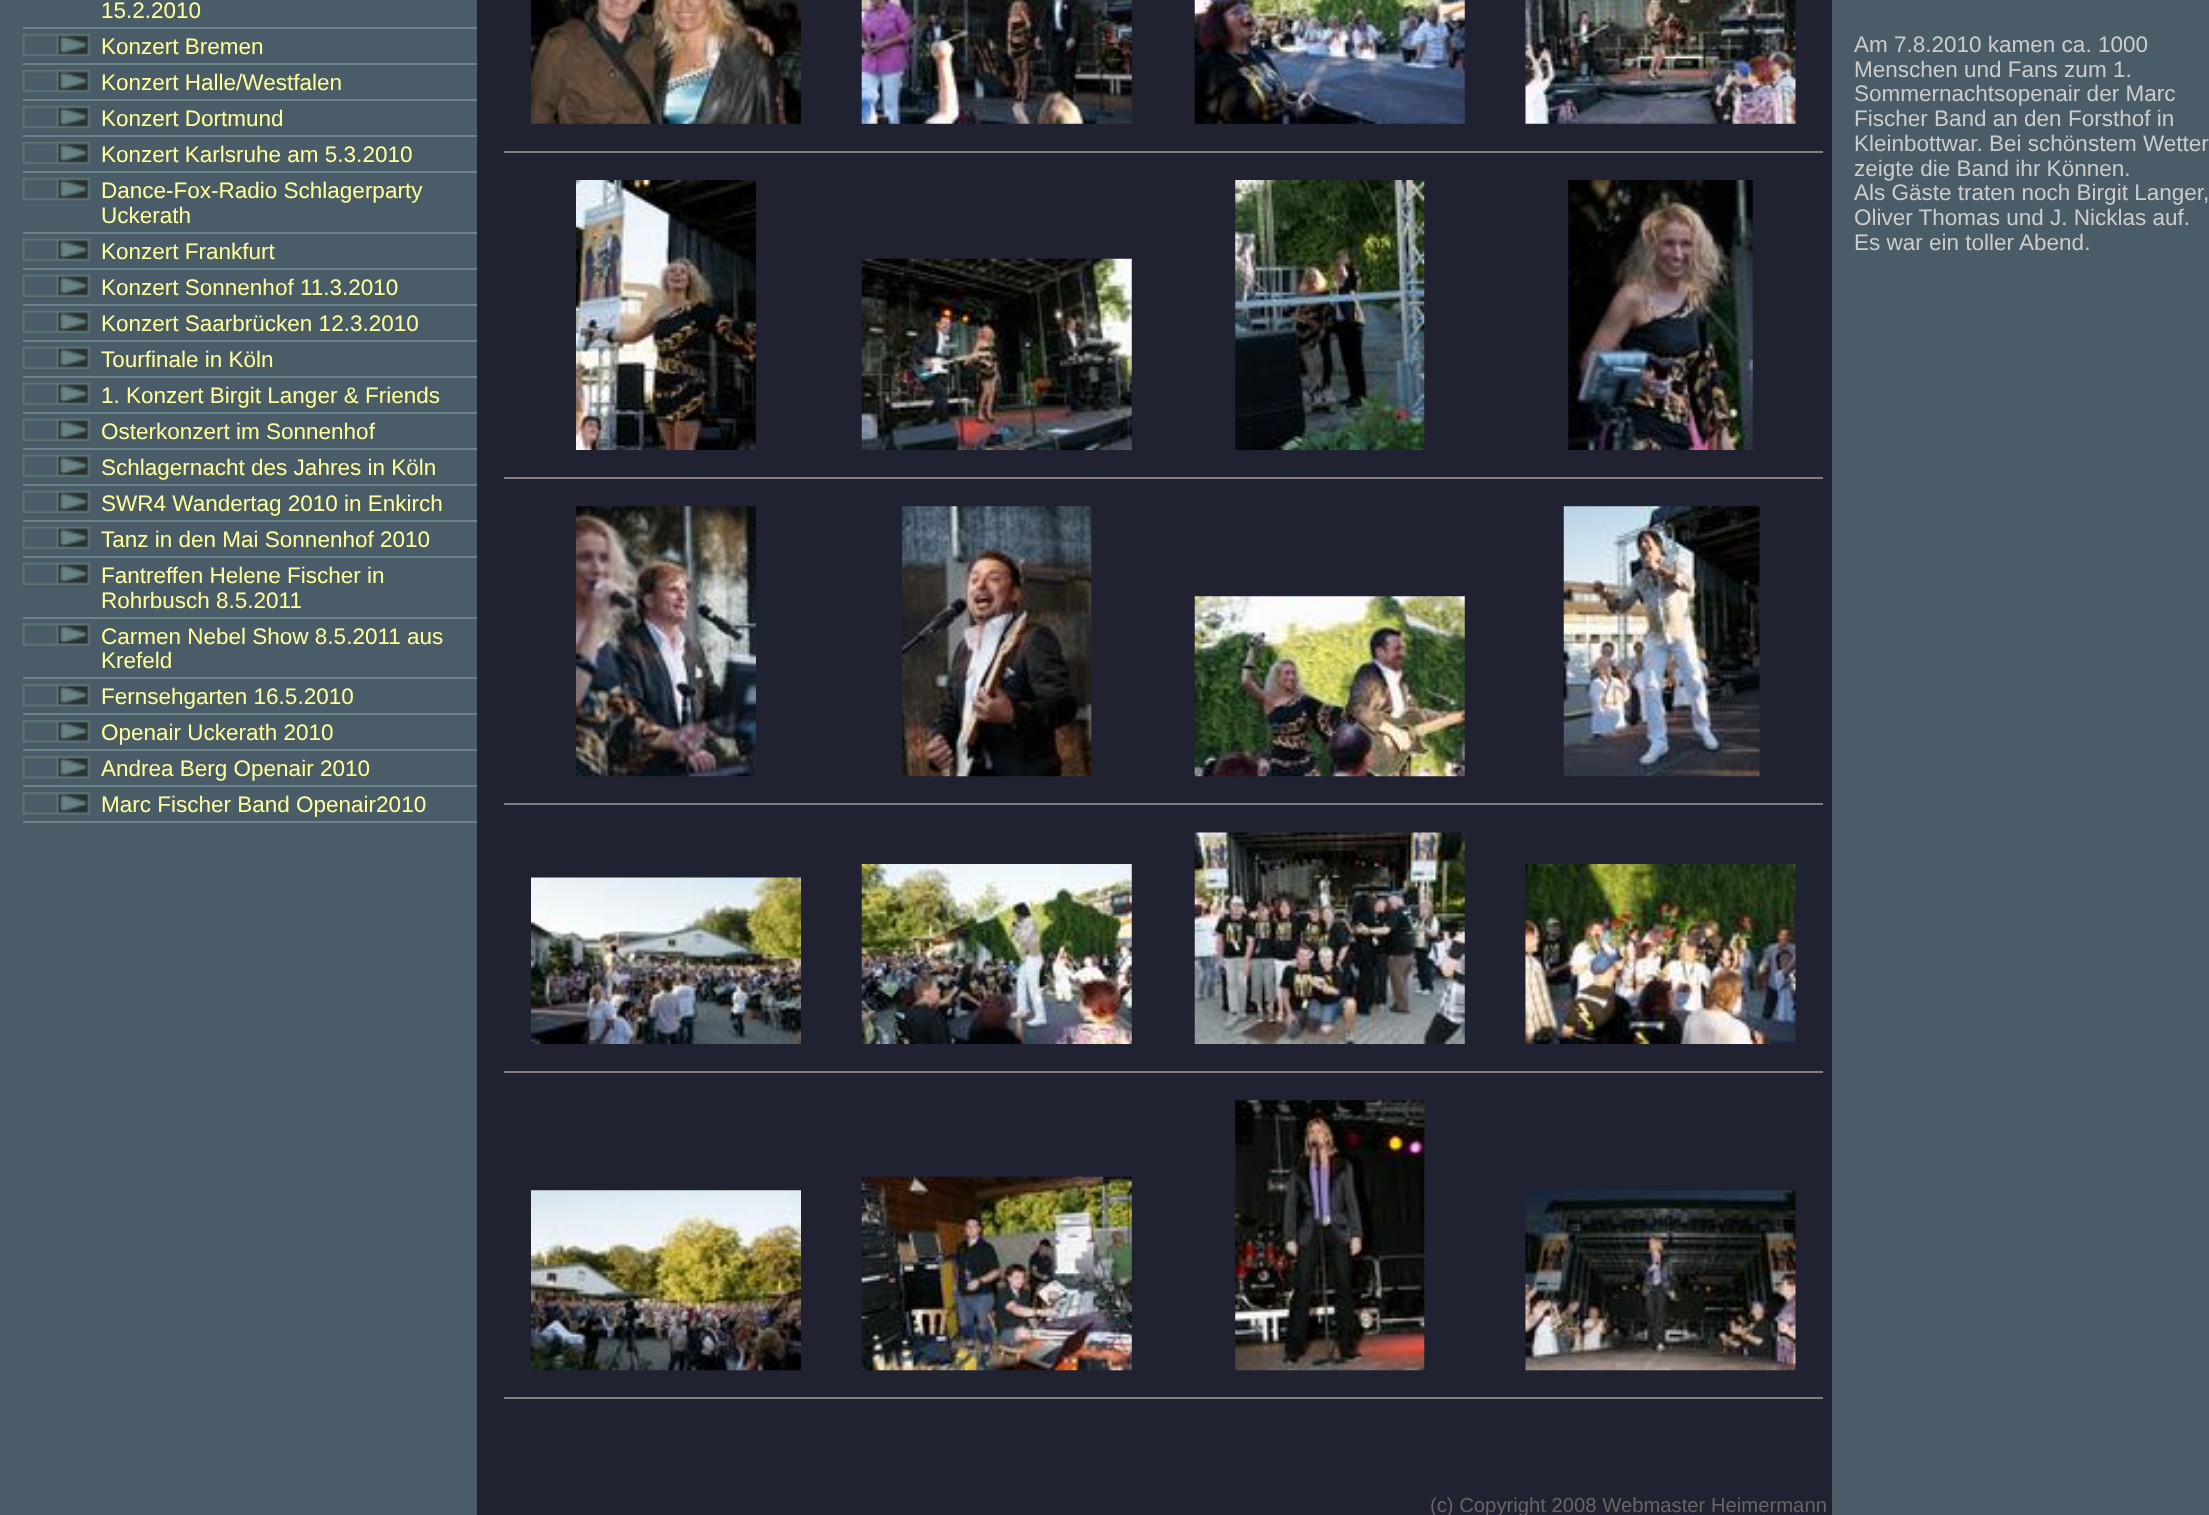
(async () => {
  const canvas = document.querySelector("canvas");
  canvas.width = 2209;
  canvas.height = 1515;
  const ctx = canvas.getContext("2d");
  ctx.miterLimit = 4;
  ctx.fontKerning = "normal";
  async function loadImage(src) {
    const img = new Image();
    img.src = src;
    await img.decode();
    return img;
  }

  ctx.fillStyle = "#495c67";
  ctx.fillRect(0, 0, 2209, 1515);
  ctx.fillStyle = "#6a8386";
  ctx.fillRect(23, 27, 454, 2);
  ctx.fillRect(23, 63, 454, 2);
  ctx.drawImage(await loadImage("img/1.png"), 22, 33, 68, 24);
  ctx.fillRect(23, 99, 454, 2);
  ctx.drawImage(await loadImage("img/1.png"), 22, 69, 68, 24);
  ctx.fillRect(23, 135, 454, 2);
  ctx.drawImage(await loadImage("img/1.png"), 22, 105, 68, 24);
  ctx.fillRect(23, 171, 454, 2);
  ctx.drawImage(await loadImage("img/1.png"), 22, 141, 68, 24);
  ctx.fillRect(23, 232, 454, 2);
  ctx.drawImage(await loadImage("img/1.png"), 22, 177, 68, 24);
  ctx.fillRect(23, 268, 454, 2);
  ctx.drawImage(await loadImage("img/2.png"), 22, 238, 68, 23);
  ctx.fillRect(23, 304, 454, 2);
  ctx.drawImage(await loadImage("img/2.png"), 22, 274, 68, 23);
  ctx.fillRect(23, 340, 454, 2);
  ctx.drawImage(await loadImage("img/2.png"), 22, 310, 68, 23);
  ctx.fillRect(23, 376, 454, 2);
  ctx.drawImage(await loadImage("img/2.png"), 22, 346, 68, 23);
  ctx.fillRect(23, 412, 454, 2);
  ctx.drawImage(await loadImage("img/2.png"), 22, 382, 68, 23);
  ctx.fillRect(23, 448, 454, 2);
  ctx.drawImage(await loadImage("img/2.png"), 22, 418, 68, 23);
  ctx.fillRect(23, 484, 454, 2);
  ctx.drawImage(await loadImage("img/2.png"), 22, 454, 68, 23);
  ctx.fillRect(23, 520, 454, 2);
  ctx.drawImage(await loadImage("img/2.png"), 22, 490, 68, 23);
  ctx.fillRect(23, 556, 454, 2);
  ctx.drawImage(await loadImage("img/2.png"), 22, 526, 68, 23);
  ctx.fillRect(23, 617, 454, 2);
  ctx.drawImage(await loadImage("img/2.png"), 22, 562, 68, 23);
  ctx.fillRect(23, 677, 454, 2);
  ctx.drawImage(await loadImage("img/3.png"), 22, 623, 68, 23);
  ctx.fillRect(23, 713, 454, 2);
  ctx.drawImage(await loadImage("img/4.png"), 22, 684, 68, 23);
  ctx.fillRect(23, 749, 454, 2);
  ctx.drawImage(await loadImage("img/4.png"), 22, 720, 68, 23);
  ctx.fillRect(23, 785, 454, 2);
  ctx.drawImage(await loadImage("img/4.png"), 22, 756, 68, 23);
  ctx.fillRect(23, 821, 454, 2);
  ctx.drawImage(await loadImage("img/4.png"), 22, 792, 68, 23);
  ctx.fillStyle = "#202231";
  ctx.fillRect(477, 0, 1355, 1515);
  ctx.drawImage(await loadImage("img/5.png"), 531, 0, 270, 124);
  ctx.drawImage(await loadImage("img/6.png"), 861, 0, 271, 124);
  ctx.drawImage(await loadImage("img/7.png"), 1194, 0, 271, 124);
  ctx.drawImage(await loadImage("img/8.png"), 1525, 0, 271, 124);
  ctx.fillStyle = "#808080";
  ctx.fillRect(504, 151, 1319, 2);
  ctx.drawImage(await loadImage("img/9.png"), 576, 180, 180, 270);
  ctx.drawImage(await loadImage("img/10.png"), 861, 258, 271, 192);
  ctx.drawImage(await loadImage("img/11.png"), 1235, 180, 190, 270);
  ctx.drawImage(await loadImage("img/12.png"), 1568, 180, 185, 270);
  ctx.fillRect(504, 477, 1319, 2);
  ctx.drawImage(await loadImage("img/13.png"), 576, 506, 180, 271);
  ctx.drawImage(await loadImage("img/14.png"), 902, 506, 190, 271);
  ctx.drawImage(await loadImage("img/15.png"), 1194, 596, 271, 181);
  ctx.drawImage(await loadImage("img/16.png"), 1563, 506, 197, 271);
  ctx.fillRect(504, 803, 1319, 2);
  ctx.drawImage(await loadImage("img/17.png"), 531, 877, 270, 167);
  ctx.drawImage(await loadImage("img/18.png"), 861, 864, 271, 180);
  ctx.drawImage(await loadImage("img/19.png"), 1194, 832, 271, 212);
  ctx.drawImage(await loadImage("img/20.png"), 1525, 864, 271, 180);
  ctx.fillRect(504, 1071, 1319, 2);
  ctx.drawImage(await loadImage("img/21.png"), 531, 1190, 270, 181);
  ctx.drawImage(await loadImage("img/22.png"), 861, 1176, 271, 195);
  ctx.drawImage(await loadImage("img/23.png"), 1235, 1100, 190, 271);
  ctx.drawImage(await loadImage("img/24.png"), 1525, 1190, 271, 181);
  ctx.fillRect(504, 1397, 1319, 2);
  ctx.font = "22.5px Liberation Sans";
  ctx.fillStyle = "#ffff99";
  for (const [text, x, y] of [
    ["15.2.2010", 101, 18],
    ["Konzert Bremen", 101, 54],
    ["Konzert Halle/Westfalen", 101, 90],
    ["Konzert Dortmund", 101, 126],
    ["Konzert Karlsruhe am 5.3.2010", 101, 162],
    ["Dance-Fox-Radio Schlagerparty", 101, 198],
    ["Uckerath", 101, 223],
    ["Konzert Frankfurt", 101, 259],
    ["Konzert Sonnenhof 11.3.2010", 101, 295],
    ["Konzert Saarbrücken 12.3.2010", 101, 331],
    ["Tourfinale in Köln", 101, 367],
    ["1. Konzert Birgit Langer & Friends", 101, 403],
    ["Osterkonzert im Sonnenhof", 101, 439],
    ["Schlagernacht des Jahres in Köln", 101, 475],
    ["SWR4 Wandertag 2010 in Enkirch", 101, 511],
    ["Tanz in den Mai Sonnenhof 2010", 101, 547],
    ["Fantreffen Helene Fischer in", 101, 583],
    ["Rohrbusch 8.5.2011", 101, 608],
    ["Carmen Nebel Show 8.5.2011 aus", 101, 644],
    ["Krefeld", 101, 668],
    ["Fernsehgarten 16.5.2010", 101, 704],
    ["Openair Uckerath 2010", 101, 740],
    ["Andrea Berg Openair 2010", 101, 776],
    ["Marc Fischer Band Openair2010", 101, 812],
  ]) {
    ctx.fillText(text, x, y);
  }
  ctx.fillStyle = "#cccccc";
  for (const [text, x, y] of [
    ["Am 7.8.2010 kamen ca. 1000", 1854, 52],
    ["Menschen und Fans zum 1.", 1854, 77],
    ["Sommernachtsopenair der Marc", 1854, 101],
    ["Fischer Band an den Forsthof in", 1854, 126],
    ["Kleinbottwar. Bei schönstem Wetter", 1854, 151],
    ["zeigte die Band ihr Können.", 1854, 176],
    ["Als Gäste traten noch Birgit Langer,", 1854, 200],
    ["Oliver Thomas und J. Nicklas auf.", 1854, 225],
    ["Es war ein toller Abend.", 1854, 250],
  ]) {
    ctx.fillText(text, x, y);
  }
  ctx.font = "20.25px Liberation Sans";
  ctx.fillStyle = "#666666";
  ctx.fillText("(c) Copyright 2008 Webmaster Heimermann", 1430, 1512);
})();
